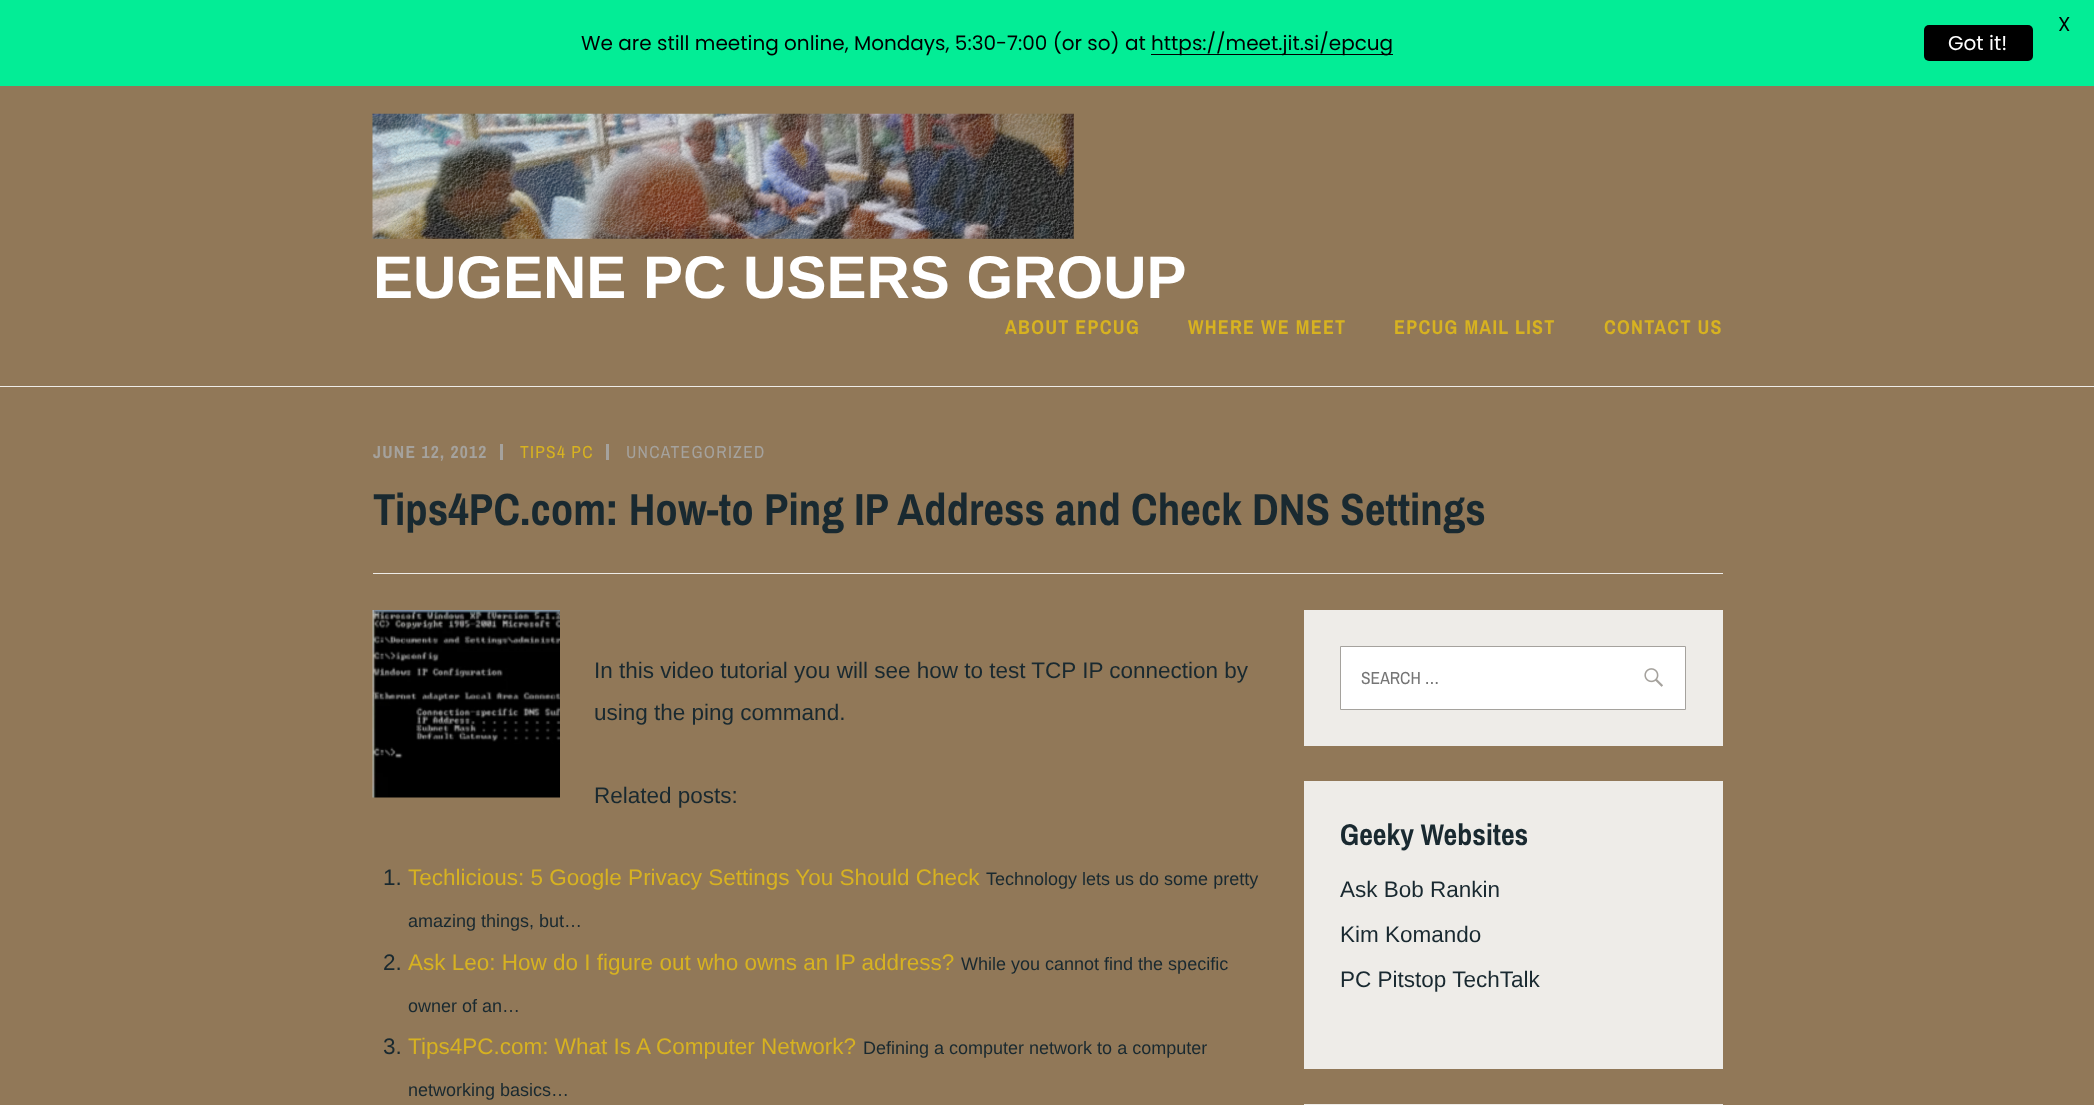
(async () => {
  const canvas = document.querySelector("canvas");
  canvas.width = 2094;
  canvas.height = 1105;
  const ctx = canvas.getContext("2d");
  ctx.miterLimit = 4;
  ctx.fontKerning = "normal";
  async function loadImage(src) {
    const img = new Image();
    img.src = src;
    await img.decode();
    return img;
  }

  ctx.fillStyle = "#917858";
  ctx.fillRect(0, 0, 2094, 1105);
  ctx.fillStyle = "#03ed96";
  ctx.fillRect(0, 0, 2094, 86);
  ctx.fillStyle = "#000000";
  ctx.fillRect(1151, 54, 242, 1);
  ctx.beginPath();
  ctx.roundRect(1924, 25, 109, 36, 5);
  ctx.fill();
  ctx.fillStyle = "#eeece8";
  ctx.fillRect(0, 386, 2094, 1);
  ctx.drawImage(await loadImage("img/1.png"), 372, 113, 702, 126);
  for (const [x, y, w, h, color] of [
    [500, 444, 3, 16, "#a5a29d"],
    [606, 444, 3, 16, "#a5a29d"],
    [373, 573, 1350, 1, "#eeece8"],
  ]) {
    ctx.fillStyle = color;
    ctx.fillRect(x, y, w, h);
  }
  ctx.drawImage(await loadImage("img/2.png"), 372, 610, 188, 188);
  ctx.fillRect(1304, 610, 419, 136);
  ctx.fillStyle = "#ffffff";
  ctx.beginPath();
  ctx.rect(1340.5, 646.5, 345, 63);
  ctx.fill();
  ctx.strokeStyle = "#a5a29d";
  ctx.stroke();
  ctx.drawImage(await loadImage("img/3.png"), 1644, 668, 19, 19);
  ctx.fillStyle = "#eeece8";
  ctx.fillRect(1304, 781, 419, 288);
  ctx.fillRect(1304, 1104, 419, 1);
  ctx.font = "20px Poppins";
  ctx.fillStyle = "#000000";
  for (const [text, x, y] of [
    ["X", 2058, 31],
    ["We are still meeting online, Mondays, 5:30-7:00 (or so) at", 581, 50],
    ["https://meet.jit.si/epcug", 1151, 50],
  ]) {
    ctx.fillText(text, x, y);
  }
  ctx.fillStyle = "#ffffff";
  ctx.fillText("Got it!", 1948, 50);
  ctx.font = "bold 60px Liberation Sans";
  ctx.fillText("EUGENE PC USERS GROUP", 373, 298);
  ctx.letterSpacing = "1.25px";
  ctx.font = "bold 20px Archivo Narrow";
  ctx.fillStyle = "#d7b221";
  for (const [text, x, y] of [
    ["ABOUT EPCUG", 1005, 334],
    ["WHERE WE MEET", 1188, 334],
    ["EPCUG MAIL LIST", 1394, 334],
    ["CONTACT US", 1604, 334],
  ]) {
    ctx.fillText(text, x, y);
  }
  ctx.font = "bold 17.5px Archivo Narrow";
  ctx.fillStyle = "#a5a29d";
  ctx.fillText("JUNE 12, 2012", 373, 458);
  ctx.font = "17.5px Archivo Narrow";
  ctx.fillStyle = "#d7b221";
  ctx.fillText("TIPS4 PC", 520, 458);
  ctx.fillStyle = "#a5a29d";
  ctx.fillText("UNCATEGORIZED", 626, 458);
  ctx.letterSpacing = "0px";
  ctx.font = "bold 45px Archivo Narrow";
  ctx.fillStyle = "#192930";
  ctx.fillText("Tips4PC.com: How-to Ping IP Address and Check DNS Settings", 373, 525);
  ctx.font = "22.5px Liberation Sans";
  for (const [text, x, y] of [
    ["In this video tutorial you will see how to test TCP IP connection by", 594, 678],
    ["using the ping command.", 594, 720],
    ["Related posts:", 594, 803],
    ["1.", 383, 885],
  ]) {
    ctx.fillText(text, x, y);
  }
  ctx.fillStyle = "#d7b221";
  ctx.fillText("Techlicious: 5 Google Privacy Settings You Should Check", 408, 885);
  ctx.font = "18px Liberation Sans";
  ctx.fillStyle = "#192930";
  ctx.fillText("Technology lets us do some pretty", 986, 885);
  ctx.fillText("amazing things, but…", 408, 927);
  ctx.font = "22.5px Liberation Sans";
  ctx.fillText("2.", 383, 970);
  ctx.fillStyle = "#d7b221";
  ctx.fillText("Ask Leo: How do I figure out who owns an IP address?", 408, 970);
  ctx.font = "18px Liberation Sans";
  ctx.fillStyle = "#192930";
  ctx.fillText("While you cannot find the specific", 961, 970);
  ctx.fillText("owner of an…", 408, 1012);
  ctx.font = "22.5px Liberation Sans";
  ctx.fillText("3.", 383, 1054);
  ctx.fillStyle = "#d7b221";
  ctx.fillText("Tips4PC.com: What Is A Computer Network?", 408, 1054);
  ctx.font = "18px Liberation Sans";
  ctx.fillStyle = "#192930";
  ctx.fillText("Defining a computer network to a computer", 863, 1054);
  ctx.fillText("networking basics…", 408, 1096);
  ctx.font = "17.5px Archivo Narrow";
  ctx.fillStyle = "#757575";
  ctx.fillText("SEARCH …", 1361, 684);
  ctx.font = "bold 30px Archivo Narrow";
  ctx.fillStyle = "#192930";
  ctx.fillText("Geeky Websites", 1340, 845);
  ctx.font = "22.5px Liberation Sans";
  for (const [text, x, y] of [
    ["Ask Bob Rankin", 1340, 897],
    ["Kim Komando", 1340, 942],
    ["PC Pitstop TechTalk", 1340, 987],
  ]) {
    ctx.fillText(text, x, y);
  }
})();
